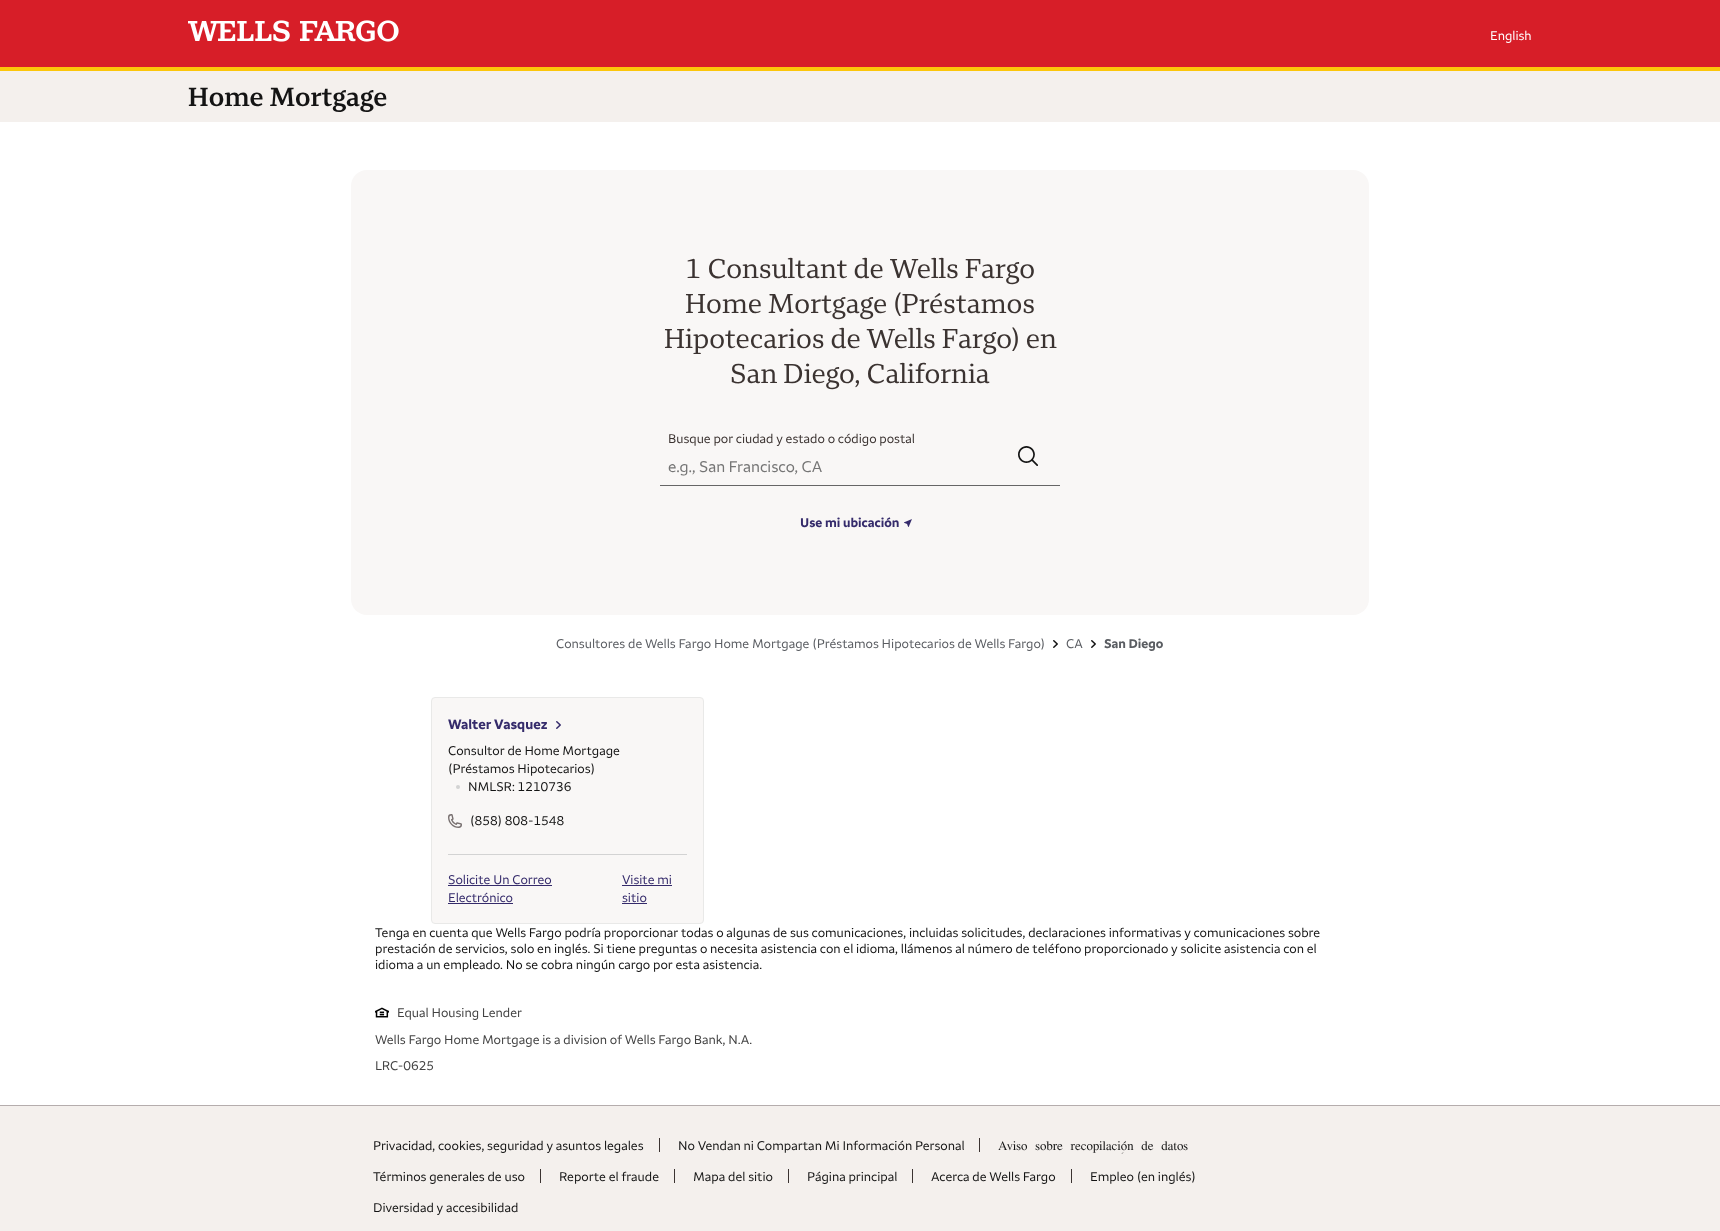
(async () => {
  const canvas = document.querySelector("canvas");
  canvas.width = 1720;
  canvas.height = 1231;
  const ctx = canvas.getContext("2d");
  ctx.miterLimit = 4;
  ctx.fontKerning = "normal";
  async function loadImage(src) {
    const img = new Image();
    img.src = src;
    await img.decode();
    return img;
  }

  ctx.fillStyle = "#ffffff";
  ctx.fillRect(0, 0, 1720, 1231);
  ctx.fillStyle = "#d71e28";
  ctx.fillRect(0, 0, 1720, 67);
  ctx.fillStyle = "#fcc60a";
  ctx.fillRect(0, 67, 1720, 4);
  ctx.drawImage(await loadImage("img/1.png"), 188, 20, 211, 22);
  ctx.fillStyle = "#f4f0ed";
  ctx.fillRect(0, 71, 1720, 51);
  ctx.fillStyle = "#f9f7f6";
  ctx.beginPath();
  ctx.roundRect(351, 170, 1018, 445, 16);
  ctx.fill();
  ctx.fillStyle = "#666666";
  ctx.fillRect(660, 485, 400, 1);
  ctx.drawImage(await loadImage("img/2.png"), 1018, 446, 20, 20);
  ctx.drawImage(await loadImage("img/3.png"), 904, 519, 8, 8);
  ctx.drawImage(await loadImage("img/4.png"), 1053, 640, 5, 8);
  ctx.drawImage(await loadImage("img/4.png"), 1091, 640, 5, 8);
  ctx.fillStyle = "#f9f7f6";
  ctx.beginPath();
  ctx.roundRect(431.5, 697.5, 272, 226, 3.5);
  ctx.fill();
  ctx.strokeStyle = "#e9e9e8";
  ctx.stroke();
  ctx.drawImage(await loadImage("img/5.png"), 556, 721, 5, 8);
  ctx.fillStyle = "#d3d3d3";
  ctx.beginPath();
  ctx.arc(458, 787, 2, 0, Math.PI * 2);
  ctx.fill();
  ctx.drawImage(await loadImage("img/6.png"), 448, 814, 14, 14);
  for (const [x, y, w, h, color] of [
    [448, 854, 239, 1, "#d3d3d3"],
    [448, 885, 104, 1, "#352b6b"],
    [448, 903, 65, 1, "#352b6b"],
    [622, 885, 50, 1, "#352b6b"],
    [622, 903, 25, 1, "#352b6b"],
  ]) {
    ctx.fillStyle = color;
    ctx.fillRect(x, y, w, h);
  }
  ctx.drawImage(await loadImage("img/7.png"), 375, 1007, 14, 11);
  for (const [x, y, w, h, color] of [
    [0, 1106, 1720, 125, "#f4f0ed"],
    [0, 1105, 1720, 1, "#b5adad"],
    [659, 1138, 1, 14, "#3b3331"],
    [979, 1138, 1, 14, "#3b3331"],
    [540, 1169, 1, 14, "#3b3331"],
    [674, 1169, 1, 14, "#3b3331"],
    [788, 1169, 1, 14, "#3b3331"],
    [912, 1169, 1, 14, "#3b3331"],
    [1071, 1169, 1, 14, "#3b3331"],
  ]) {
    ctx.fillStyle = color;
    ctx.fillRect(x, y, w, h);
  }
  ctx.font = "13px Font";
  ctx.fillStyle = "#ffffff";
  ctx.fillText("English", 1490, 40);
  ctx.font = "600 27px Font";
  ctx.fillStyle = "#141414";
  ctx.fillText("Home Mortgage", 188, 106);
  ctx.font = "28px 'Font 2'";
  ctx.fillStyle = "#3b3331";
  for (const [text, x, y] of [
    ["1 Consultant de Wells Fargo", 685, 278],
    ["Home Mortgage (Préstamos", 685, 313],
    ["Hipotecarios de Wells Fargo) en", 664, 348],
    ["San Diego, California", 730, 383],
  ]) {
    ctx.fillText(text, x, y);
  }
  ctx.font = "13px Font";
  ctx.fillText("Busque por ciudad y estado o código postal", 668, 443);
  ctx.font = "16px Font";
  ctx.fillStyle = "#757575";
  ctx.fillText("e.g., San Francisco, CA", 668, 472);
  ctx.font = "bold 13px Font";
  ctx.fillStyle = "#352b6b";
  ctx.fillText("Use mi ubicación", 800, 527);
  ctx.font = "13px Font";
  ctx.fillStyle = "#5a5d62";
  ctx.fillText("Consultores de Wells Fargo Home Mortgage (Préstamos Hipotecarios de Wells Fargo)", 556, 648);
  ctx.fillText("CA", 1066, 648);
  ctx.font = "bold 13px Font";
  ctx.fillText("San Diego", 1104, 648);
  ctx.font = "bold 14px Font";
  ctx.fillStyle = "#352b6b";
  ctx.fillText("Walter Vasquez", 448, 729);
  ctx.font = "13px Font";
  ctx.fillStyle = "#141414";
  for (const [text, x, y] of [
    ["Consultor de Home Mortgage", 448, 755],
    ["(Préstamos Hipotecarios)", 448, 773],
    ["NMLSR: 1210736", 468, 791],
    ["(858) 808-1548", 470, 825],
  ]) {
    ctx.fillText(text, x, y);
  }
  ctx.fillStyle = "#352b6b";
  for (const [text, x, y] of [
    ["Solicite Un Correo", 448, 884],
    ["Electrónico", 448, 902],
    ["Visite mi", 622, 884],
    ["sitio", 622, 902],
  ]) {
    ctx.fillText(text, x, y);
  }
  ctx.fillStyle = "#141414";
  for (const [text, x, y] of [
    ["Tenga en cuenta que Wells Fargo podría proporcionar todas o algunas de sus comunicaciones, incluidas solicitudes, declaraciones informativas y comunicaciones sobre", 375, 937],
    ["prestación de servicios, solo en inglés. Si tiene preguntas o necesita asistencia con el idioma, llámenos al número de teléfono proporcionado y solicite asistencia con el", 375, 953],
    ["idioma a un empleado. No se cobra ningún cargo por esta asistencia.", 375, 969],
  ]) {
    ctx.fillText(text, x, y);
  }
  ctx.fillStyle = "#434343";
  for (const [text, x, y] of [
    ["Equal Housing Lender", 397, 1017],
    ["Wells Fargo Home Mortgage is a division of Wells Fargo Bank, N.A.", 375, 1044],
    ["LRC-0625", 375, 1070],
  ]) {
    ctx.fillText(text, x, y);
  }
  ctx.fillStyle = "#141414";
  ctx.fillText("Privacidad, cookies, seguridad y asuntos legales", 373, 1150);
  ctx.fillText("No Vendan ni Compartan Mi Información Personal", 678, 1150);
  ctx.wordSpacing = "4.5px";
  ctx.font = "13px FreeSerif";
  ctx.fillText("Aviso sobre recopilaciؚón de datos", 998, 1150);
  ctx.wordSpacing = "0px";
  ctx.font = "13px Font";
  for (const [text, x, y] of [
    ["Términos generales de uso", 373, 1181],
    ["Reporte el fraude", 559, 1181],
    ["Mapa del sitio", 693, 1181],
    ["Página principal", 807, 1181],
    ["Acerca de Wells Fargo", 931, 1181],
    ["Empleo (en inglés)", 1090, 1181],
    ["Diversidad y accesibilidad", 373, 1212],
  ]) {
    ctx.fillText(text, x, y);
  }
})();
